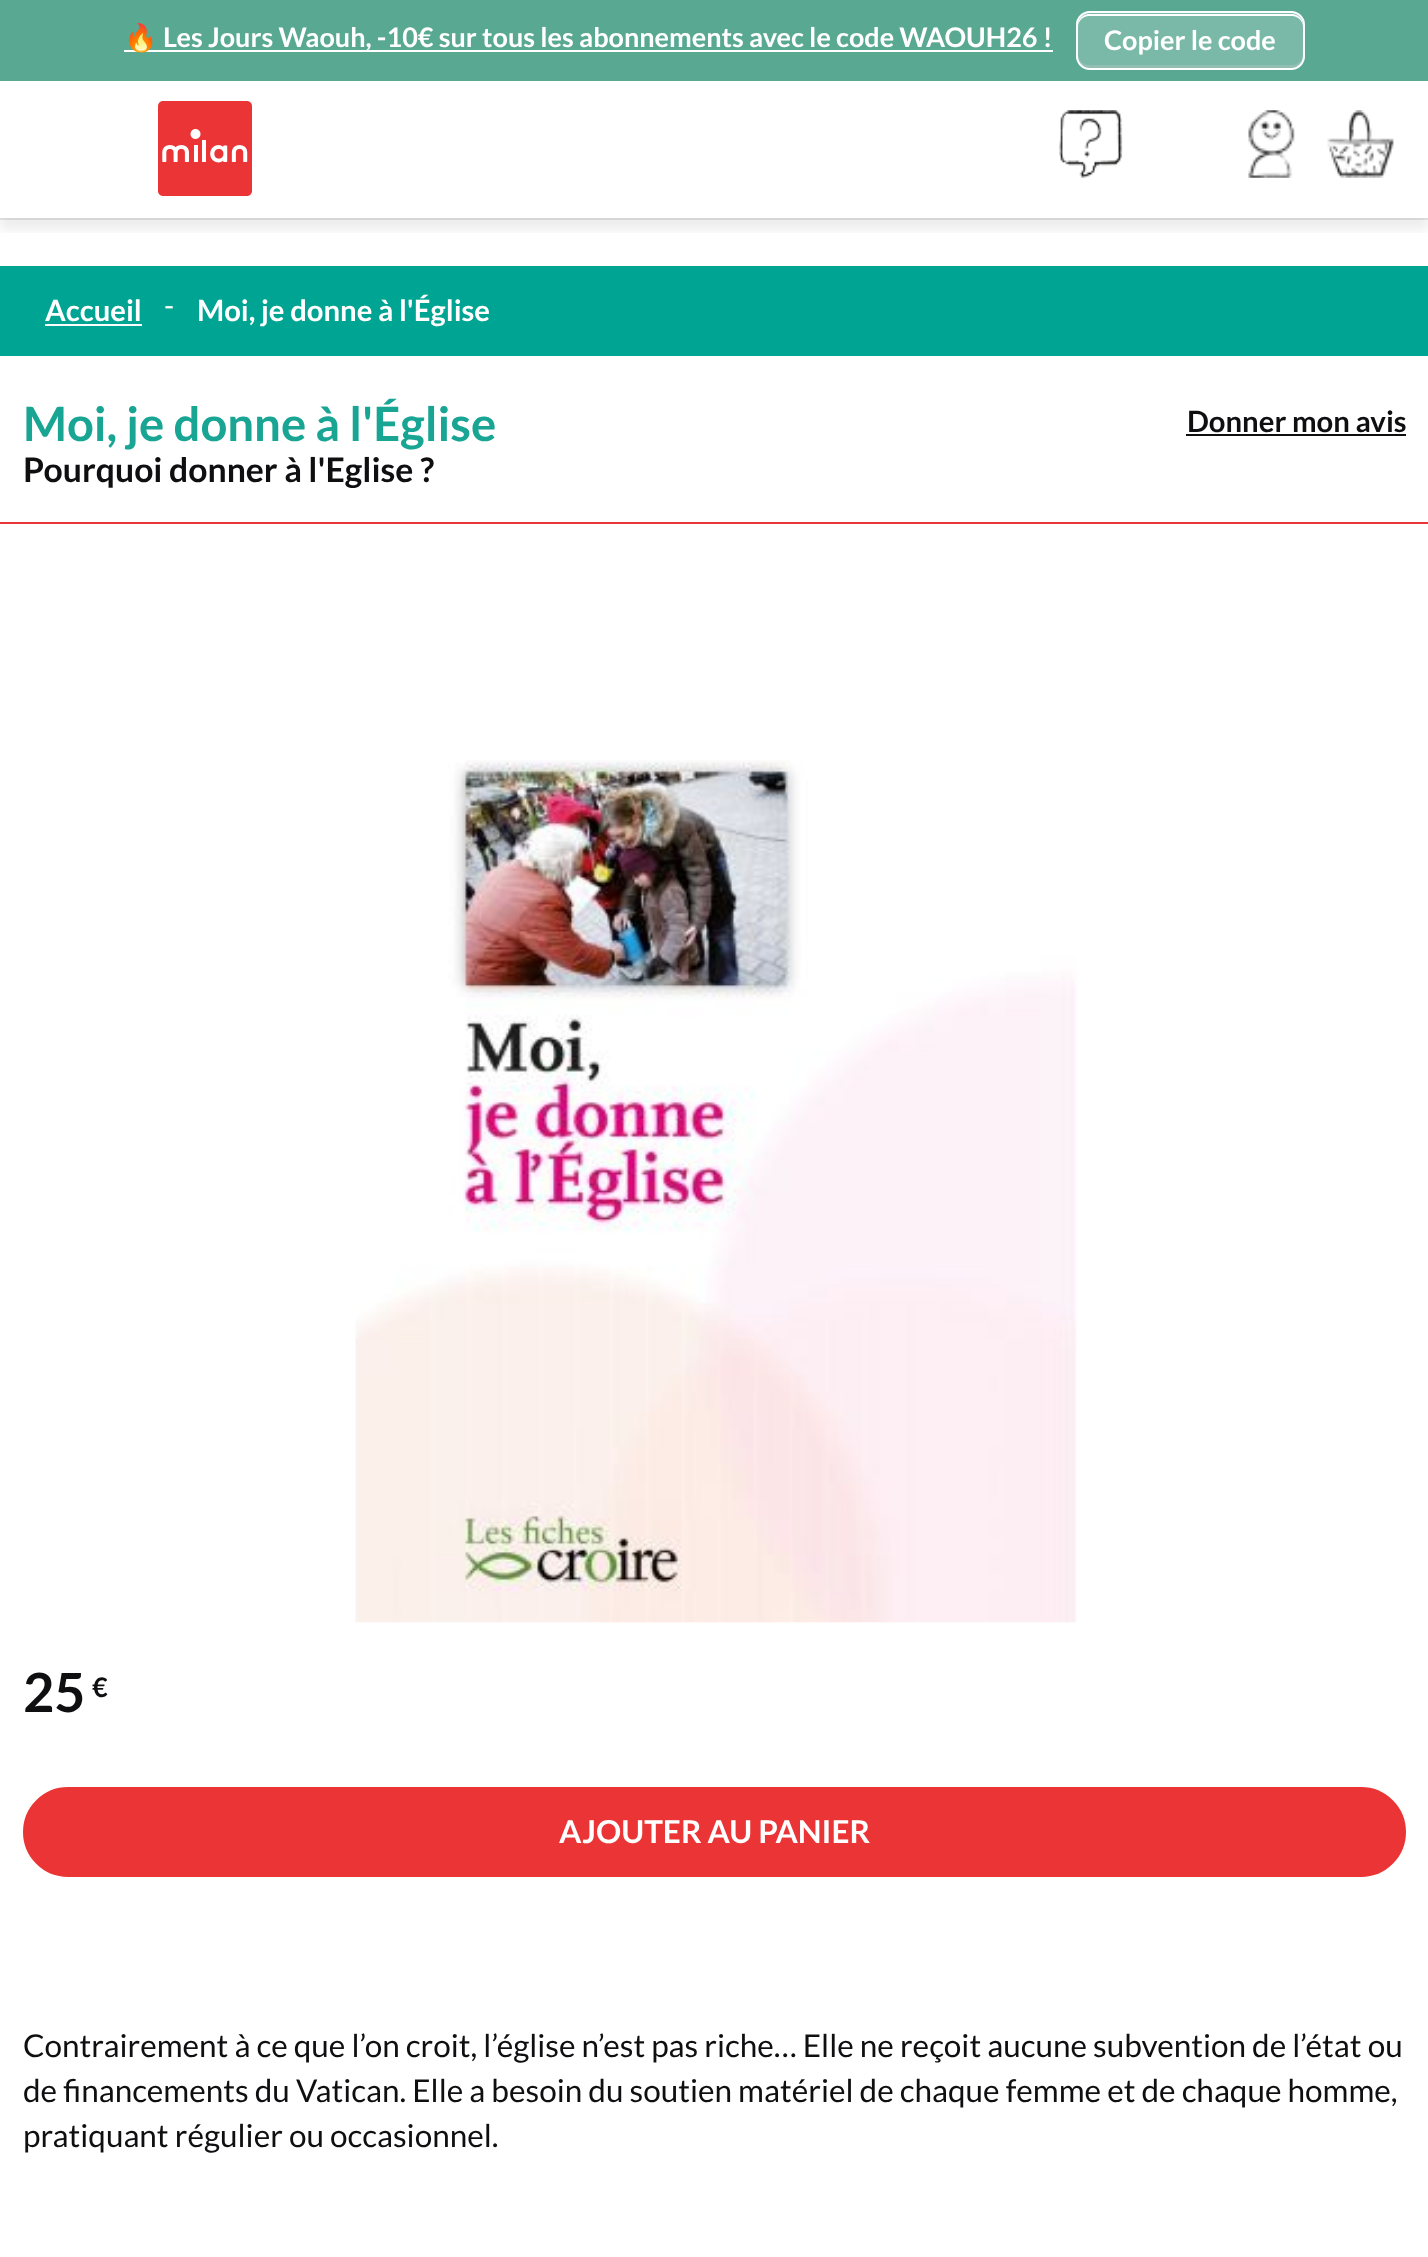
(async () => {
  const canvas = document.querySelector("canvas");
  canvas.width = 1428;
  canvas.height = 2257;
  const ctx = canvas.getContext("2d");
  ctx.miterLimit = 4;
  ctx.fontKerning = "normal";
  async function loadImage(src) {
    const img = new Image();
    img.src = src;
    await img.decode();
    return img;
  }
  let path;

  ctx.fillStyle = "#ffffff";
  ctx.fillRect(0, 0, 1428, 2257);
  for (const [x, y, w, h, color] of [
    [0, 218, 1428, 2, "#e7e7e7"],
    [0, 0, 1428, 81, "#59a892"],
    [124, 50, 929, 2, "#ffffff"],
  ]) {
    ctx.fillStyle = color;
    ctx.fillRect(x, y, w, h);
  }
  ctx.fillStyle = "#7ab9a8";
  ctx.beginPath();
  ctx.roundRect(1076, 11, 229, 59, 14);
  ctx.fill();
  ctx.fillStyle = "#93bfb3";
  path = new Path2D("M1078 54V57C1078 63 1083 68 1089 68H1292C1298 68 1303 63 1303 57V54C1303 60 1298 65 1292 65H1089C1083 65 1078 60 1078 54Z");
  ctx.fill(path);
  ctx.fillStyle = "#ffffff";
  path = new Path2D("M1089 16H1292C1298 16 1303 21 1303 27V25C1303 19 1298 14 1292 14H1089C1083 14 1078 19 1078 25V27C1078 21 1083 16 1089 16Z");
  ctx.fill(path);
  ctx.beginPath();
  ctx.roundRect(1077, 12, 227, 57, 13);
  ctx.strokeStyle = "#ffffff";
  ctx.lineWidth = 2;
  ctx.stroke();
  ctx.save();
  ctx.beginPath();
  ctx.rect(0, 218, 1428, 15);
  ctx.clip();
  ctx.fillStyle = "rgba(0, 0, 0, 0.07)";
  ctx.filter = "blur(5.5px)";
  ctx.beginPath();
  ctx.rect(0, 92, 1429, 138);
  ctx.fill();
  ctx.filter = "none";
  ctx.restore();
  ctx.drawImage(await loadImage("img/1.png"), 158, 101, 94, 95);
  ctx.drawImage(await loadImage("img/2.png"), 1059, 110, 64, 68);
  ctx.drawImage(await loadImage("img/3.png"), 1248, 110, 47, 68);
  ctx.drawImage(await loadImage("img/4.png"), 1327, 110, 67, 68);
  for (const [x, y, w, h, color] of [
    [0, 266, 1428, 90, "#00a493"],
    [45, 324, 97, 2, "#ffffff"],
    [0, 522, 1428, 2, "#eb3435"],
    [1186, 434, 220, 2, "#0f0f11"],
  ]) {
    ctx.fillStyle = color;
    ctx.fillRect(x, y, w, h);
  }
  ctx.drawImage(await loadImage("img/5.png"), 355, 760, 722, 863);
  ctx.fillStyle = "#eb3435";
  ctx.beginPath();
  ctx.roundRect(24, 1788, 1381, 88, 44);
  ctx.fill();
  ctx.strokeStyle = "#eb3435";
  ctx.stroke();
  ctx.font = "bold 27px Noto Color Emoji";
  ctx.fillStyle = "#ffffff";
  ctx.fillText("🔥", 124, 47);
  ctx.font = "bold 27px Lato";
  ctx.fillText("Les Jours Waouh, -10€ sur tous les abonnements avec le code WAOUH26 !", 163, 47);
  ctx.fillText("Copier le code", 1104, 50);
  ctx.font = "bold 29.25px Lato";
  ctx.fillText("Accueil", 45, 321);
  ctx.font = "29.25px Lato";
  ctx.fillText("-", 164, 316);
  ctx.font = "bold 29.25px Lato";
  ctx.fillText("Moi, je donne à l'Église", 197, 321);
  ctx.font = "bold 47.25px Lato";
  ctx.fillStyle = "#19a593";
  ctx.fillText("Moi, je donne à l'Église", 23, 441);
  ctx.font = "bold 33.75px Lato";
  ctx.fillStyle = "#0f0f11";
  ctx.fillText("Pourquoi donner à l'Eglise ?", 23, 482);
  ctx.font = "bold 29.25px Lato";
  ctx.fillText("Donner mon avis", 1187, 432);
  ctx.font = "bold 54px Lato";
  ctx.fillText("25", 23, 1712);
  ctx.font = "bold 27px Lato";
  ctx.fillText("€", 92, 1697);
  ctx.font = "bold 31.5px Lato";
  ctx.fillStyle = "#ffffff";
  ctx.fillText("AJOUTER AU PANIER", 559, 1843);
  ctx.font = "31.5px Lato";
  ctx.fillStyle = "#0f0f11";
  for (const [text, x, y] of [
    ["Contrairement à ce que l’on croit, l’église n’est pas riche… Elle ne reçoit aucune subvention de l’état ou", 23, 2057],
    ["de financements du Vatican. Elle a besoin du soutien matériel de chaque femme et de chaque homme,", 23, 2102],
    ["pratiquant régulier ou occasionnel.", 23, 2147],
  ]) {
    ctx.fillText(text, x, y);
  }
})();
